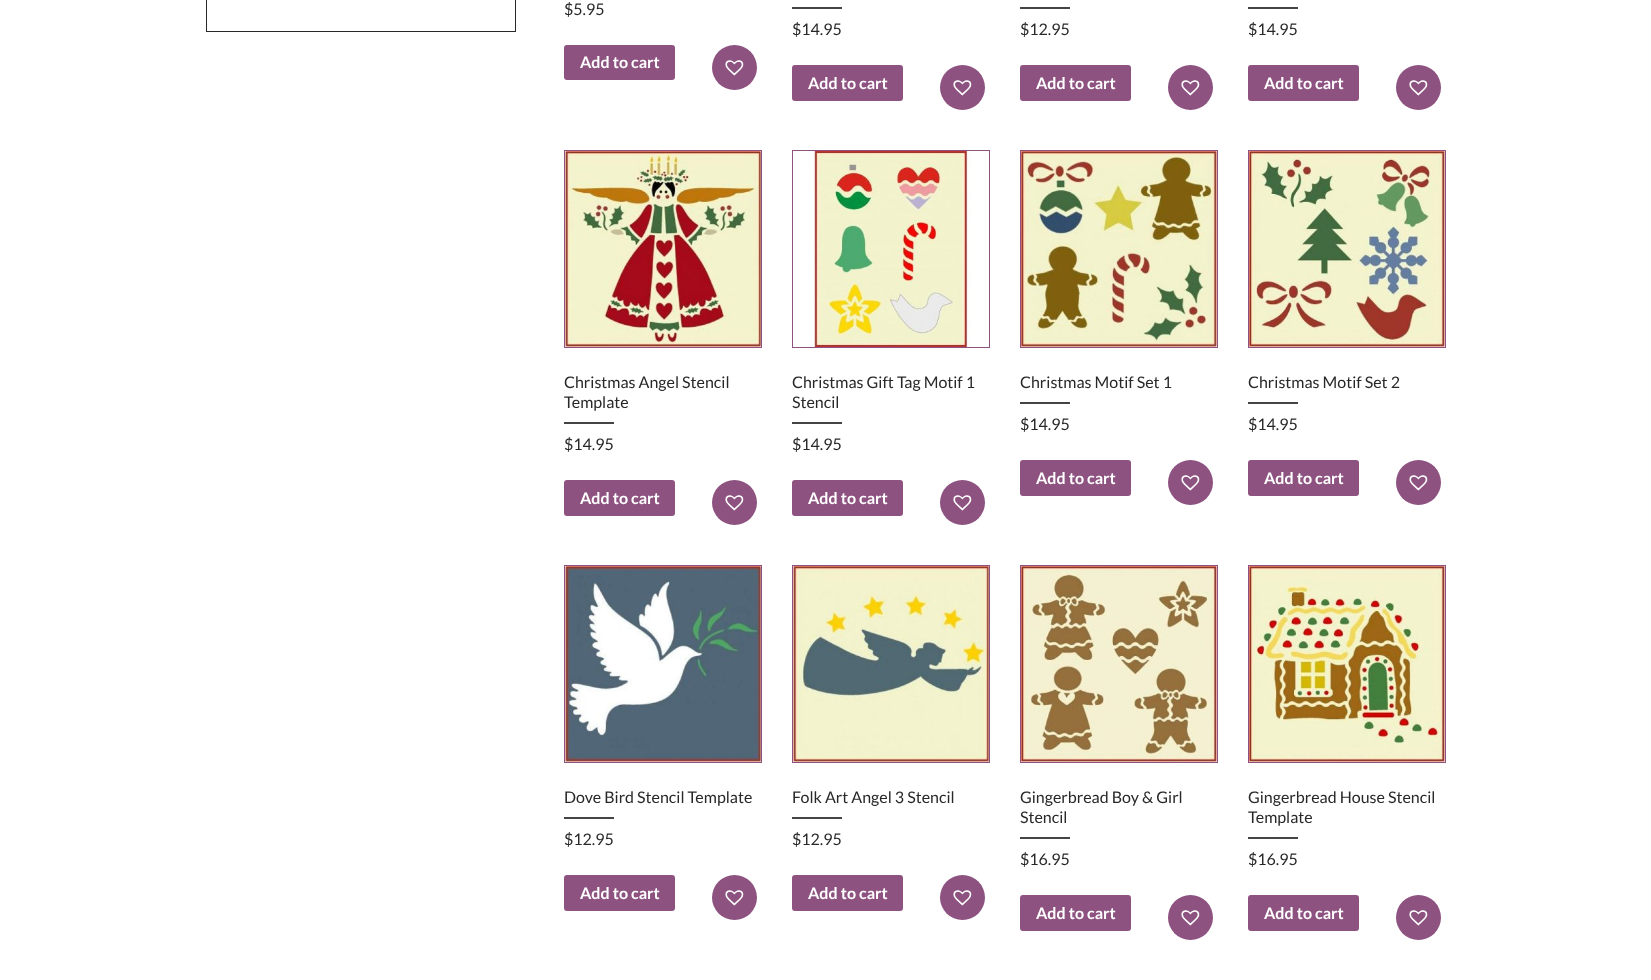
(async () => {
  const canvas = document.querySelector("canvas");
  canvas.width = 1651;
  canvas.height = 980;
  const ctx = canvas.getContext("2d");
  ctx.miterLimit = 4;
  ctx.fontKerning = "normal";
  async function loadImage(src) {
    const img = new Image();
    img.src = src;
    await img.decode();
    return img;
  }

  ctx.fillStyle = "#ffffff";
  ctx.fillRect(0, 0, 1651, 980);
  ctx.strokeStyle = "#282828";
  ctx.strokeRect(206.5, -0.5, 309, 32);
  ctx.fillStyle = "#8d5280";
  ctx.beginPath();
  ctx.roundRect(564, 45, 111, 35, 3);
  ctx.fill();
  ctx.beginPath();
  ctx.arc(734.5, 67.5, 22.5, 0, Math.PI * 2);
  ctx.fill();
  ctx.drawImage(await loadImage("img/1.png"), 725, 60, 19, 16);
  ctx.fillStyle = "#444444";
  ctx.fillRect(792, 7, 50, 2);
  ctx.fillStyle = "#8d5280";
  ctx.beginPath();
  ctx.roundRect(792, 65, 111, 36, 3);
  ctx.fill();
  ctx.beginPath();
  ctx.arc(962.5, 87.5, 22.5, 0, Math.PI * 2);
  ctx.fill();
  ctx.drawImage(await loadImage("img/1.png"), 953, 80, 19, 16);
  ctx.fillStyle = "#444444";
  ctx.fillRect(1020, 7, 50, 2);
  ctx.fillStyle = "#8d5280";
  ctx.beginPath();
  ctx.roundRect(1020, 65, 111, 36, 3);
  ctx.fill();
  ctx.beginPath();
  ctx.arc(1190.5, 87.5, 22.5, 0, Math.PI * 2);
  ctx.fill();
  ctx.drawImage(await loadImage("img/1.png"), 1181, 80, 19, 16);
  ctx.fillStyle = "#444444";
  ctx.fillRect(1248, 7, 50, 2);
  ctx.fillStyle = "#8d5280";
  ctx.beginPath();
  ctx.roundRect(1248, 65, 111, 36, 3);
  ctx.fill();
  ctx.beginPath();
  ctx.arc(1418.5, 87.5, 22.5, 0, Math.PI * 2);
  ctx.fill();
  ctx.drawImage(await loadImage("img/1.png"), 1409, 80, 19, 16);
  ctx.strokeStyle = "#8d5280";
  ctx.strokeRect(564.5, 150.5, 197, 197);
  ctx.drawImage(await loadImage("img/2.png"), 565, 151, 196, 196);
  ctx.fillStyle = "#444444";
  ctx.fillRect(564, 422, 50, 2);
  ctx.fillStyle = "#8d5280";
  ctx.beginPath();
  ctx.roundRect(564, 480, 111, 36, 3);
  ctx.fill();
  ctx.beginPath();
  ctx.arc(734.5, 502.5, 22.5, 0, Math.PI * 2);
  ctx.fill();
  ctx.drawImage(await loadImage("img/1.png"), 725, 495, 19, 16);
  ctx.strokeRect(792.5, 150.5, 197, 197);
  ctx.drawImage(await loadImage("img/3.png"), 813, 151, 158, 196);
  ctx.fillStyle = "#444444";
  ctx.fillRect(792, 422, 50, 2);
  ctx.fillStyle = "#8d5280";
  ctx.beginPath();
  ctx.roundRect(792, 480, 111, 36, 3);
  ctx.fill();
  ctx.beginPath();
  ctx.arc(962.5, 502.5, 22.5, 0, Math.PI * 2);
  ctx.fill();
  ctx.drawImage(await loadImage("img/1.png"), 953, 495, 19, 16);
  ctx.strokeRect(1020.5, 150.5, 197, 197);
  ctx.drawImage(await loadImage("img/4.png"), 1021, 151, 196, 196);
  ctx.fillStyle = "#444444";
  ctx.fillRect(1020, 402, 50, 2);
  ctx.fillStyle = "#8d5280";
  ctx.beginPath();
  ctx.roundRect(1020, 460, 111, 36, 3);
  ctx.fill();
  ctx.beginPath();
  ctx.arc(1190.5, 482.5, 22.5, 0, Math.PI * 2);
  ctx.fill();
  ctx.drawImage(await loadImage("img/1.png"), 1181, 475, 19, 16);
  ctx.strokeRect(1248.5, 150.5, 197, 197);
  ctx.drawImage(await loadImage("img/5.png"), 1249, 151, 196, 196);
  ctx.fillStyle = "#444444";
  ctx.fillRect(1248, 402, 50, 2);
  ctx.fillStyle = "#8d5280";
  ctx.beginPath();
  ctx.roundRect(1248, 460, 111, 36, 3);
  ctx.fill();
  ctx.beginPath();
  ctx.arc(1418.5, 482.5, 22.5, 0, Math.PI * 2);
  ctx.fill();
  ctx.drawImage(await loadImage("img/1.png"), 1409, 475, 19, 16);
  ctx.strokeRect(564.5, 565.5, 197, 197);
  ctx.drawImage(await loadImage("img/6.png"), 565, 566, 196, 196);
  ctx.fillStyle = "#444444";
  ctx.fillRect(564, 817, 50, 2);
  ctx.fillStyle = "#8d5280";
  ctx.beginPath();
  ctx.roundRect(564, 875, 111, 36, 3);
  ctx.fill();
  ctx.beginPath();
  ctx.arc(734.5, 897.5, 22.5, 0, Math.PI * 2);
  ctx.fill();
  ctx.drawImage(await loadImage("img/1.png"), 725, 890, 19, 16);
  ctx.strokeRect(792.5, 565.5, 197, 197);
  ctx.drawImage(await loadImage("img/7.png"), 793, 566, 196, 196);
  ctx.fillStyle = "#444444";
  ctx.fillRect(792, 817, 50, 2);
  ctx.fillStyle = "#8d5280";
  ctx.beginPath();
  ctx.roundRect(792, 875, 111, 36, 3);
  ctx.fill();
  ctx.beginPath();
  ctx.arc(962.5, 897.5, 22.5, 0, Math.PI * 2);
  ctx.fill();
  ctx.drawImage(await loadImage("img/1.png"), 953, 890, 19, 16);
  ctx.strokeRect(1020.5, 565.5, 197, 197);
  ctx.drawImage(await loadImage("img/8.png"), 1021, 566, 196, 196);
  ctx.fillStyle = "#444444";
  ctx.fillRect(1020, 837, 50, 2);
  ctx.fillStyle = "#8d5280";
  ctx.beginPath();
  ctx.roundRect(1020, 895, 111, 36, 3);
  ctx.fill();
  ctx.beginPath();
  ctx.arc(1190.5, 917.5, 22.5, 0, Math.PI * 2);
  ctx.fill();
  ctx.drawImage(await loadImage("img/1.png"), 1181, 910, 19, 16);
  ctx.strokeRect(1248.5, 565.5, 197, 197);
  ctx.drawImage(await loadImage("img/9.png"), 1249, 566, 196, 196);
  ctx.fillStyle = "#444444";
  ctx.fillRect(1248, 837, 50, 2);
  ctx.fillStyle = "#8d5280";
  ctx.beginPath();
  ctx.roundRect(1248, 895, 111, 36, 3);
  ctx.fill();
  ctx.beginPath();
  ctx.arc(1418.5, 917.5, 22.5, 0, Math.PI * 2);
  ctx.fill();
  ctx.drawImage(await loadImage("img/1.png"), 1409, 910, 19, 16);
  ctx.font = "16px Lato";
  ctx.fillStyle = "#282828";
  ctx.fillText("$5.95", 564, 15);
  ctx.font = "bold 16px Lato";
  ctx.fillStyle = "#ffffff";
  ctx.fillText("Add to cart", 580, 68);
  ctx.font = "16px Lato";
  ctx.fillStyle = "#282828";
  ctx.fillText("$14.95", 792, 35);
  ctx.font = "bold 16px Lato";
  ctx.fillStyle = "#ffffff";
  ctx.fillText("Add to cart", 808, 89);
  ctx.font = "16px Lato";
  ctx.fillStyle = "#282828";
  ctx.fillText("$12.95", 1020, 35);
  ctx.font = "bold 16px Lato";
  ctx.fillStyle = "#ffffff";
  ctx.fillText("Add to cart", 1036, 89);
  ctx.font = "16px Lato";
  ctx.fillStyle = "#282828";
  ctx.fillText("$14.95", 1248, 35);
  ctx.font = "bold 16px Lato";
  ctx.fillStyle = "#ffffff";
  ctx.fillText("Add to cart", 1264, 89);
  ctx.font = "16px Lato";
  ctx.fillStyle = "#282828";
  for (const [text, x, y] of [
    ["Christmas Angel Stencil", 564, 388],
    ["Template", 564, 408],
    ["$14.95", 564, 450],
  ]) {
    ctx.fillText(text, x, y);
  }
  ctx.font = "bold 16px Lato";
  ctx.fillStyle = "#ffffff";
  ctx.fillText("Add to cart", 580, 504);
  ctx.font = "16px Lato";
  ctx.fillStyle = "#282828";
  for (const [text, x, y] of [
    ["Christmas Gift Tag Motif 1", 792, 388],
    ["Stencil", 792, 408],
    ["$14.95", 792, 450],
  ]) {
    ctx.fillText(text, x, y);
  }
  ctx.font = "bold 16px Lato";
  ctx.fillStyle = "#ffffff";
  ctx.fillText("Add to cart", 808, 504);
  ctx.font = "16px Lato";
  ctx.fillStyle = "#282828";
  ctx.fillText("Christmas Motif Set 1", 1020, 388);
  ctx.fillText("$14.95", 1020, 430);
  ctx.font = "bold 16px Lato";
  ctx.fillStyle = "#ffffff";
  ctx.fillText("Add to cart", 1036, 484);
  ctx.font = "16px Lato";
  ctx.fillStyle = "#282828";
  ctx.fillText("Christmas Motif Set 2", 1248, 388);
  ctx.fillText("$14.95", 1248, 430);
  ctx.font = "bold 16px Lato";
  ctx.fillStyle = "#ffffff";
  ctx.fillText("Add to cart", 1264, 484);
  ctx.font = "16px Lato";
  ctx.fillStyle = "#282828";
  ctx.fillText("Dove Bird Stencil Template", 564, 803);
  ctx.fillText("$12.95", 564, 845);
  ctx.font = "bold 16px Lato";
  ctx.fillStyle = "#ffffff";
  ctx.fillText("Add to cart", 580, 899);
  ctx.font = "16px Lato";
  ctx.fillStyle = "#282828";
  ctx.fillText("Folk Art Angel 3 Stencil", 792, 803);
  ctx.fillText("$12.95", 792, 845);
  ctx.font = "bold 16px Lato";
  ctx.fillStyle = "#ffffff";
  ctx.fillText("Add to cart", 808, 899);
  ctx.font = "16px Lato";
  ctx.fillStyle = "#282828";
  for (const [text, x, y] of [
    ["Gingerbread Boy & Girl", 1020, 803],
    ["Stencil", 1020, 823],
    ["$16.95", 1020, 865],
  ]) {
    ctx.fillText(text, x, y);
  }
  ctx.font = "bold 16px Lato";
  ctx.fillStyle = "#ffffff";
  ctx.fillText("Add to cart", 1036, 919);
  ctx.font = "16px Lato";
  ctx.fillStyle = "#282828";
  for (const [text, x, y] of [
    ["Gingerbread House Stencil", 1248, 803],
    ["Template", 1248, 823],
    ["$16.95", 1248, 865],
  ]) {
    ctx.fillText(text, x, y);
  }
  ctx.font = "bold 16px Lato";
  ctx.fillStyle = "#ffffff";
  ctx.fillText("Add to cart", 1264, 919);
})();
